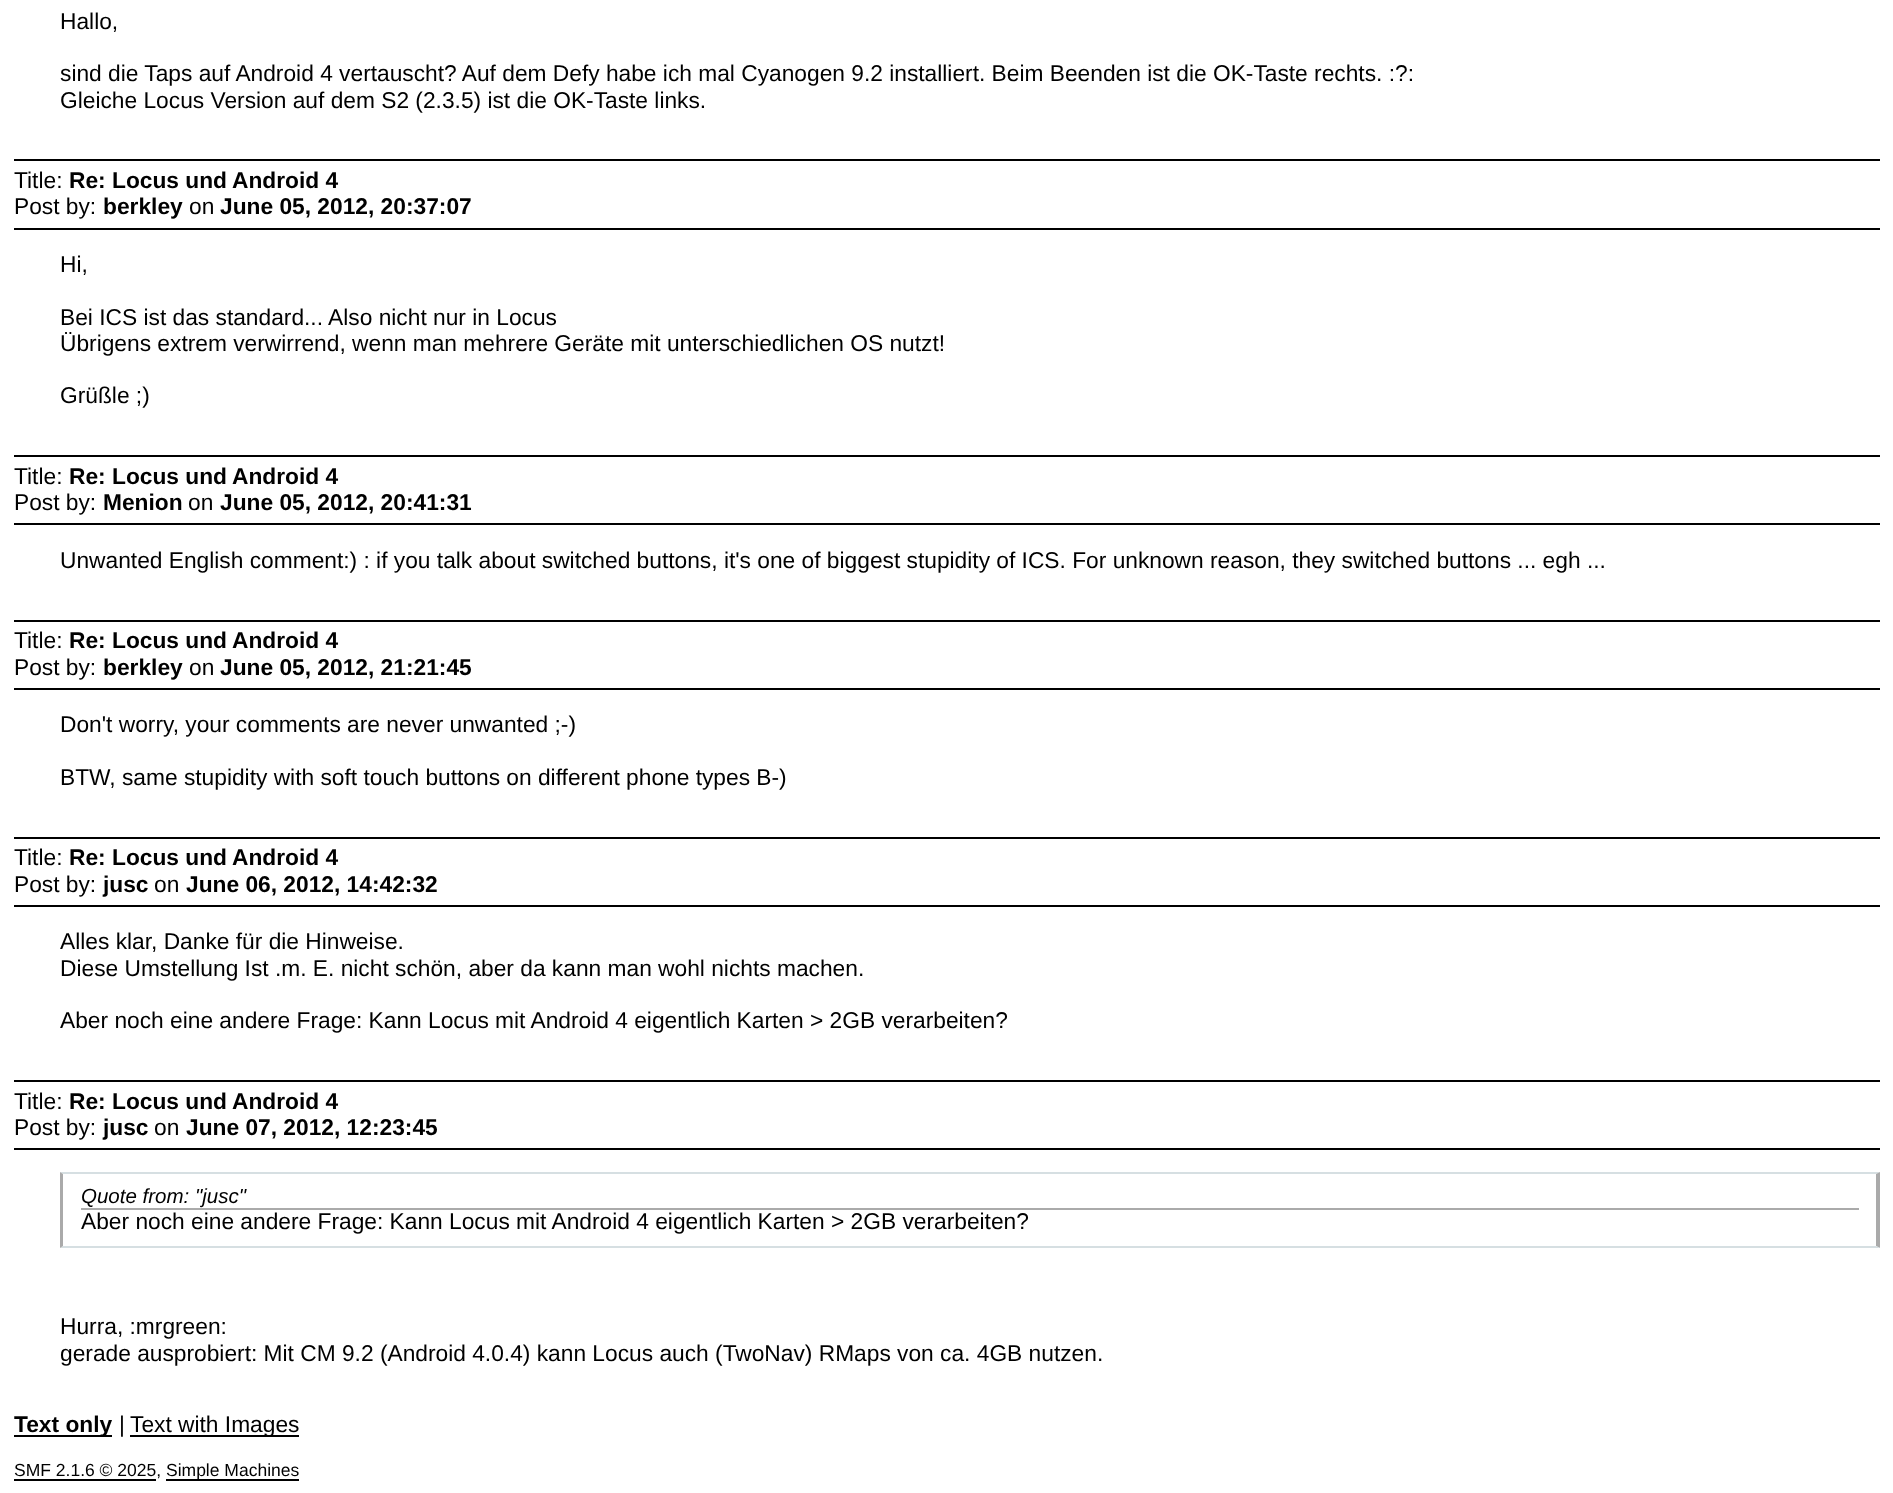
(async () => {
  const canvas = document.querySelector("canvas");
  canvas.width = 1893;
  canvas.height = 1493;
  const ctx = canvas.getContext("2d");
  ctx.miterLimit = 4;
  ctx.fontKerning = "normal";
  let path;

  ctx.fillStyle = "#ffffff";
  ctx.fillRect(0, 0, 1893, 1493);
  for (const [x, y, w, h, color] of [
    [14, 159, 1866, 2, "#000000"],
    [14, 228, 1866, 2, "#000000"],
    [14, 455, 1866, 2, "#000000"],
    [14, 523, 1866, 2, "#000000"],
    [14, 620, 1866, 2, "#000000"],
    [14, 688, 1866, 2, "#000000"],
    [14, 837, 1866, 2, "#000000"],
    [14, 905, 1866, 2, "#000000"],
    [14, 1080, 1866, 2, "#000000"],
    [14, 1148, 1866, 2, "#000000"],
  ]) {
    ctx.fillStyle = color;
    ctx.fillRect(x, y, w, h);
  }
  ctx.fillStyle = "#d6dfe2";
  path = new Path2D("M60 1172H1880L1876 1174H63Z");
  ctx.fill(path);
  ctx.fillStyle = "#aaaaaa";
  path = new Path2D("M1880 1172V1248L1876 1246V1174Z");
  ctx.fill(path);
  ctx.fillStyle = "#d6dfe2";
  path = new Path2D("M1880 1248H60L63 1246H1876Z");
  ctx.fill(path);
  ctx.fillStyle = "#aaaaaa";
  path = new Path2D("M60 1248V1172L63 1174V1246Z");
  ctx.fill(path);
  for (const [x, y, w, h, color] of [
    [81, 1208, 1778, 2, "#aaaaaa"],
    [14, 1435, 98, 2, "#000000"],
    [130, 1435, 169, 2, "#000000"],
    [14, 1479, 142, 2, "#000000"],
    [166, 1479, 133, 2, "#000000"],
  ]) {
    ctx.fillStyle = color;
    ctx.fillRect(x, y, w, h);
  }
  ctx.font = "22.75px Liberation Sans";
  for (const [text, x, y] of [
    ["Hallo,", 60, 29],
    ["sind die Taps auf Android 4 vertauscht? Auf dem Defy habe ich mal Cyanogen 9.2 installiert. Beim Beenden ist die OK-Taste rechts. :?:", 60, 81],
    ["Gleiche Locus Version auf dem S2 (2.3.5) ist die OK-Taste links.", 60, 108],
    ["Title:", 14, 188],
  ]) {
    ctx.fillText(text, x, y);
  }
  ctx.font = "bold 22.75px Liberation Sans";
  ctx.fillText("Re: Locus und", 69, 188);
  ctx.fillText("Android 4", 232, 188);
  ctx.font = "22.75px Liberation Sans";
  ctx.fillText("Post by:", 14, 214);
  ctx.font = "bold 22.75px Liberation Sans";
  ctx.fillText("berkley", 103, 214);
  ctx.font = "22.75px Liberation Sans";
  ctx.fillText("on", 189, 214);
  ctx.font = "bold 22.75px Liberation Sans";
  ctx.fillText("June 05, 2012, 20:37:07", 220, 214);
  ctx.font = "22.75px Liberation Sans";
  for (const [text, x, y] of [
    ["Hi,", 60, 272],
    ["Bei ICS ist das standard... Also nicht nur in Locus", 60, 325],
    ["Übrigens extrem verwirrend, wenn man mehrere Geräte mit unterschiedlichen OS nutzt!", 60, 351],
    ["Grüßle ;)", 60, 403],
    ["Title:", 14, 484],
  ]) {
    ctx.fillText(text, x, y);
  }
  ctx.font = "bold 22.75px Liberation Sans";
  ctx.fillText("Re: Locus und", 69, 484);
  ctx.fillText("Android 4", 232, 484);
  ctx.font = "22.75px Liberation Sans";
  ctx.fillText("Post by:", 14, 510);
  ctx.font = "bold 22.75px Liberation Sans";
  ctx.fillText("Menion", 103, 510);
  ctx.font = "22.75px Liberation Sans";
  ctx.fillText("on", 188, 510);
  ctx.font = "bold 22.75px Liberation Sans";
  ctx.fillText("June 05, 2012, 20:41:31", 220, 510);
  ctx.font = "22.75px Liberation Sans";
  ctx.fillText("Unwanted English comment:) : if you talk about switched buttons, it's one of biggest stupidity of ICS. For unknown reason, they switched buttons ... egh ...", 60, 568);
  ctx.fillText("Title:", 14, 648);
  ctx.font = "bold 22.75px Liberation Sans";
  ctx.fillText("Re: Locus und", 69, 648);
  ctx.fillText("Android 4", 232, 648);
  ctx.font = "22.75px Liberation Sans";
  ctx.fillText("Post by:", 14, 675);
  ctx.font = "bold 22.75px Liberation Sans";
  ctx.fillText("berkley", 103, 675);
  ctx.font = "22.75px Liberation Sans";
  ctx.fillText("on", 189, 675);
  ctx.font = "bold 22.75px Liberation Sans";
  ctx.fillText("June 05, 2012, 21:21:45", 220, 675);
  ctx.font = "22.75px Liberation Sans";
  for (const [text, x, y] of [
    ["Don't worry, your comments are never unwanted ;-)", 60, 732],
    ["BTW, same stupidity with soft touch buttons on different phone types B-)", 60, 785],
    ["Title:", 14, 865],
  ]) {
    ctx.fillText(text, x, y);
  }
  ctx.font = "bold 22.75px Liberation Sans";
  ctx.fillText("Re: Locus und", 69, 865);
  ctx.fillText("Android 4", 232, 865);
  ctx.font = "22.75px Liberation Sans";
  ctx.fillText("Post by:", 14, 892);
  ctx.font = "bold 22.75px Liberation Sans";
  ctx.fillText("jusc", 103, 892);
  ctx.font = "22.75px Liberation Sans";
  ctx.fillText("on", 154, 892);
  ctx.font = "bold 22.75px Liberation Sans";
  ctx.fillText("June 06, 2012, 14:42:32", 186, 892);
  ctx.font = "22.75px Liberation Sans";
  for (const [text, x, y] of [
    ["Alles klar, Danke für die Hinweise.", 60, 949],
    ["Diese Umstellung Ist .m. E. nicht schön, aber da kann man wohl nichts machen.", 60, 976],
    ["Aber noch eine andere Frage: Kann Locus mit Android 4 eigentlich Karten > 2GB verarbeiten?", 60, 1028],
    ["Title:", 14, 1109],
  ]) {
    ctx.fillText(text, x, y);
  }
  ctx.font = "bold 22.75px Liberation Sans";
  ctx.fillText("Re: Locus und", 69, 1109);
  ctx.fillText("Android 4", 232, 1109);
  ctx.font = "22.75px Liberation Sans";
  ctx.fillText("Post by:", 14, 1135);
  ctx.font = "bold 22.75px Liberation Sans";
  ctx.fillText("jusc", 103, 1135);
  ctx.font = "22.75px Liberation Sans";
  ctx.fillText("on", 154, 1135);
  ctx.font = "bold 22.75px Liberation Sans";
  ctx.fillText("June 07, 2012, 12:23:45", 186, 1135);
  ctx.font = "italic 20.5px Liberation Sans";
  ctx.fillText("Quote from: \"jusc\"", 81, 1203);
  ctx.font = "22.75px Liberation Sans";
  for (const [text, x, y] of [
    ["Aber noch eine andere Frage: Kann Locus mit Android 4 eigentlich Karten > 2GB verarbeiten?", 81, 1229],
    ["Hurra, :mrgreen:", 60, 1334],
    ["gerade ausprobiert: Mit CM 9.2 (Android 4.0.4) kann Locus auch (TwoNav) RMaps von ca. 4GB nutzen.", 60, 1361],
  ]) {
    ctx.fillText(text, x, y);
  }
  ctx.font = "bold 22.75px Liberation Sans";
  ctx.fillText("Text only", 14, 1432);
  ctx.font = "22.75px Liberation Sans";
  ctx.fillText("|", 119, 1432);
  ctx.fillText("Text with Images", 130, 1432);
  ctx.font = "17.5px Liberation Sans";
  ctx.fillText("SMF 2.1.6 © 2025,", 14, 1476);
  ctx.fillText("Simple Machines", 166, 1476);
})();
